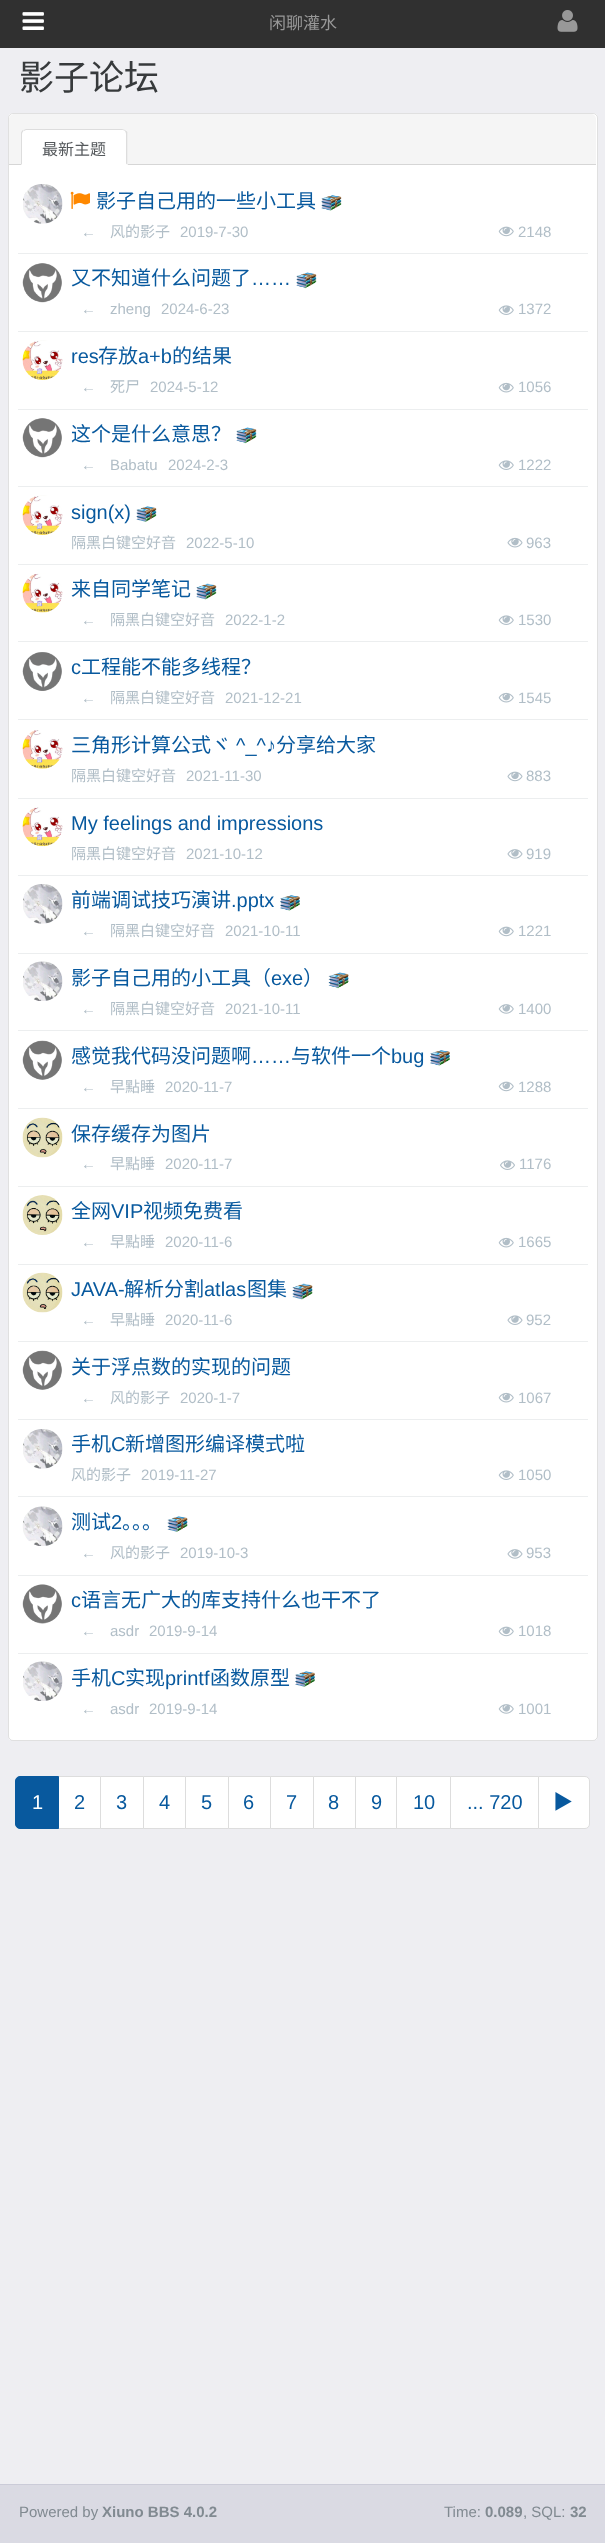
(async () => {
  const canvas = document.querySelector("canvas");
  canvas.width = 605;
  canvas.height = 2543;
  const ctx = canvas.getContext("2d");
  ctx.miterLimit = 4;
  ctx.fontKerning = "normal";
  async function loadImage(src) {
    const img = new Image();
    img.src = src;
    await img.decode();
    return img;
  }
  let path;

  ctx.fillStyle = "#eeeef2";
  ctx.fillRect(0, 0, 605, 2543);
  ctx.fillStyle = "#303030";
  ctx.fillRect(0, 0, 605, 48);
  ctx.drawImage(await loadImage("img/1.png"), 22, 12, 22, 18);
  ctx.drawImage(await loadImage("img/2.png"), 557, 10, 21, 22);
  ctx.fillStyle = "#ffffff";
  ctx.beginPath();
  ctx.roundRect(8, 113, 590, 1628, 5);
  ctx.fill();
  ctx.beginPath();
  ctx.roundRect(8.5, 113.5, 589, 1627, 4.5);
  ctx.strokeStyle = "rgba(0, 0, 0, 0.12)";
  ctx.stroke();
  ctx.fillStyle = "#f5f5f5";
  ctx.beginPath();
  ctx.roundRect(9, 114, 587, 51, [5, 5, 0, 0]);
  ctx.fill();
  ctx.fillStyle = "#d6d6d6";
  ctx.fillRect(9, 164, 587, 1);
  ctx.fillStyle = "#ffffff";
  ctx.beginPath();
  ctx.roundRect(21, 129, 107, 36, [5, 5, 0, 0]);
  ctx.fill();
  ctx.fillStyle = "#dddddd";
  path = new Path2D("M26 129L23 130L24 131L26 130H122C123 130 124 130 125 131L126 130L122 129Z");
  ctx.fill(path);
  path = new Path2D("M126 130.5L127.5 132V165L126 163.5V134C126 133 125.5 132 125 131Z");
  ctx.fill(path);
  path = new Path2D("M21 165L22 164V134C22 133 22.5 132 23.5 131L22.5 130L21 132.5Z");
  ctx.fill(path);
  ctx.drawImage(await loadImage("img/3.png"), 23, 184, 40, 40);
  ctx.drawImage(await loadImage("img/4.png"), 70, 191, 20, 18);
  ctx.drawImage(await loadImage("img/5.png"), 321, 195, 21, 16);
  ctx.drawImage(await loadImage("img/6.png"), 498, 226, 16, 11);
  ctx.drawImage(await loadImage("img/7.png"), 22, 263, 40, 40);
  ctx.fillStyle = "#eceeef";
  ctx.fillRect(18, 253, 570, 1);
  ctx.drawImage(await loadImage("img/8.png"), 296, 272, 21, 17);
  ctx.drawImage(await loadImage("img/9.png"), 498, 305, 16, 10);
  ctx.drawImage(await loadImage("img/10.png"), 22, 340, 41, 40);
  ctx.fillRect(18, 331, 570, 1);
  ctx.drawImage(await loadImage("img/11.png"), 498, 382, 16, 11);
  ctx.drawImage(await loadImage("img/7.png"), 22, 418, 40, 40);
  ctx.fillRect(18, 409, 570, 1);
  ctx.drawImage(await loadImage("img/8.png"), 236, 427, 21, 17);
  ctx.drawImage(await loadImage("img/9.png"), 498, 460, 16, 10);
  ctx.drawImage(await loadImage("img/12.png"), 22, 495, 41, 40);
  ctx.fillRect(18, 486, 570, 1);
  ctx.drawImage(await loadImage("img/13.png"), 136, 506, 21, 16);
  ctx.drawImage(await loadImage("img/14.png"), 507, 537, 16, 11);
  ctx.drawImage(await loadImage("img/15.png"), 22, 573, 41, 40);
  ctx.fillRect(18, 564, 570, 1);
  ctx.drawImage(await loadImage("img/16.png"), 196, 583, 21, 17);
  ctx.drawImage(await loadImage("img/9.png"), 498, 615, 16, 10);
  ctx.drawImage(await loadImage("img/17.png"), 22, 652, 40, 39);
  ctx.fillRect(18, 641, 570, 1);
  ctx.drawImage(await loadImage("img/11.png"), 498, 692, 16, 11);
  ctx.drawImage(await loadImage("img/18.png"), 22, 730, 41, 39);
  ctx.fillRect(18, 719, 570, 1);
  ctx.drawImage(await loadImage("img/19.png"), 507, 771, 16, 11);
  ctx.drawImage(await loadImage("img/20.png"), 22, 807, 41, 40);
  ctx.fillRect(18, 798, 570, 1);
  ctx.drawImage(await loadImage("img/21.png"), 507, 849, 16, 10);
  ctx.drawImage(await loadImage("img/3.png"), 23, 884, 40, 40);
  ctx.fillRect(18, 875, 570, 1);
  ctx.drawImage(await loadImage("img/22.png"), 280, 895, 20, 16);
  ctx.drawImage(await loadImage("img/6.png"), 498, 926, 16, 11);
  ctx.drawImage(await loadImage("img/23.png"), 23, 961, 40, 40);
  ctx.fillRect(18, 953, 570, 1);
  ctx.drawImage(await loadImage("img/24.png"), 328, 972, 21, 17);
  ctx.drawImage(await loadImage("img/25.png"), 498, 1004, 16, 10);
  ctx.drawImage(await loadImage("img/26.png"), 22, 1040, 40, 40);
  ctx.fillRect(18, 1030, 570, 1);
  ctx.drawImage(await loadImage("img/22.png"), 430, 1050, 20, 16);
  ctx.drawImage(await loadImage("img/6.png"), 498, 1081, 16, 11);
  ctx.drawImage(await loadImage("img/27.png"), 22, 1117, 41, 41);
  ctx.fillRect(18, 1108, 570, 1);
  ctx.drawImage(await loadImage("img/28.png"), 500, 1160, 15, 10);
  ctx.drawImage(await loadImage("img/29.png"), 22, 1195, 41, 40);
  ctx.fillRect(18, 1186, 570, 1);
  ctx.drawImage(await loadImage("img/11.png"), 498, 1237, 16, 11);
  ctx.drawImage(await loadImage("img/27.png"), 22, 1272, 41, 41);
  ctx.fillRect(18, 1264, 570, 1);
  ctx.drawImage(await loadImage("img/30.png"), 292, 1283, 21, 17);
  ctx.drawImage(await loadImage("img/31.png"), 507, 1315, 16, 10);
  ctx.drawImage(await loadImage("img/26.png"), 22, 1350, 40, 40);
  ctx.fillRect(18, 1341, 570, 1);
  ctx.drawImage(await loadImage("img/11.png"), 498, 1392, 16, 11);
  ctx.drawImage(await loadImage("img/3.png"), 23, 1429, 40, 40);
  ctx.fillRect(18, 1419, 570, 1);
  ctx.drawImage(await loadImage("img/9.png"), 498, 1470, 16, 10);
  ctx.drawImage(await loadImage("img/32.png"), 22, 1506, 41, 40);
  ctx.fillRect(18, 1496, 570, 1);
  ctx.drawImage(await loadImage("img/33.png"), 167, 1516, 21, 16);
  ctx.drawImage(await loadImage("img/21.png"), 507, 1549, 16, 10);
  ctx.drawImage(await loadImage("img/34.png"), 22, 1584, 40, 40);
  ctx.fillRect(18, 1575, 570, 1);
  ctx.drawImage(await loadImage("img/6.png"), 498, 1626, 16, 11);
  ctx.drawImage(await loadImage("img/23.png"), 23, 1661, 40, 40);
  ctx.fillRect(18, 1653, 570, 1);
  ctx.drawImage(await loadImage("img/35.png"), 295, 1671, 20, 16);
  ctx.drawImage(await loadImage("img/25.png"), 498, 1704, 16, 10);
  ctx.fillStyle = "#ffffff";
  ctx.beginPath();
  ctx.rect(58.5, 1776.5, 42, 52);
  ctx.fill();
  ctx.strokeStyle = "#dddddd";
  ctx.stroke();
  ctx.fillStyle = "#08599e";
  ctx.beginPath();
  ctx.roundRect(15.5, 1776.5, 43, 52, [4.5, 0, 0, 4.5]);
  ctx.fill();
  ctx.strokeStyle = "#08599e";
  ctx.stroke();
  ctx.fillStyle = "#ffffff";
  ctx.beginPath();
  ctx.rect(100.5, 1776.5, 43, 52);
  ctx.fill();
  ctx.strokeStyle = "#dddddd";
  ctx.stroke();
  ctx.beginPath();
  ctx.rect(143.5, 1776.5, 42, 52);
  ctx.fill();
  ctx.stroke();
  ctx.beginPath();
  ctx.rect(185.5, 1776.5, 43, 52);
  ctx.fill();
  ctx.stroke();
  ctx.beginPath();
  ctx.rect(228.5, 1776.5, 42, 52);
  ctx.fill();
  ctx.stroke();
  ctx.beginPath();
  ctx.rect(270.5, 1776.5, 43, 52);
  ctx.fill();
  ctx.stroke();
  ctx.beginPath();
  ctx.rect(313.5, 1776.5, 42, 52);
  ctx.fill();
  ctx.stroke();
  ctx.fillRect(356, 1777, 40, 51);
  ctx.strokeRect(355.5, 1776.5, 42, 52);
  ctx.beginPath();
  ctx.rect(396.5, 1776.5, 54, 52);
  ctx.fill();
  ctx.stroke();
  ctx.beginPath();
  ctx.rect(450.5, 1776.5, 88, 52);
  ctx.fill();
  ctx.stroke();
  ctx.beginPath();
  ctx.roundRect(538.5, 1776.5, 51, 52, [0, 4.5, 4.5, 0]);
  ctx.fill();
  ctx.stroke();
  ctx.fillStyle = "#dadae3";
  ctx.fillRect(0, 2485, 605, 58);
  ctx.fillStyle = "#cbcbd8";
  ctx.fillRect(0, 2484, 605, 1);
  ctx.font = "17px Noto Sans CJK SC";
  ctx.fillStyle = "#989898";
  ctx.fillText("闲聊灌水", 269, 29);
  ctx.font = "35px Noto Sans CJK SC";
  ctx.fillStyle = "#373a3c";
  ctx.fillText("影子论坛", 19, 90);
  ctx.font = "16px Noto Sans CJK SC";
  ctx.fillStyle = "#55595c";
  ctx.fillText("最新主题", 42, 155);
  ctx.font = "20px Noto Sans CJK SC";
  ctx.fillStyle = "#08599e";
  ctx.fillText("影子自己用的一些小工具", 96, 208);
  ctx.font = "15px Liberation Sans";
  ctx.fillStyle = "#b1bec7";
  ctx.fillText("←", 81, 237);
  ctx.font = "15px Noto Sans CJK SC";
  ctx.fillText("风的影子", 110, 237);
  ctx.font = "15px Liberation Sans";
  ctx.fillText("2019-7-30", 180, 237);
  ctx.fillText("2148", 518, 237);
  ctx.font = "20px Noto Sans CJK SC";
  ctx.fillStyle = "#08599e";
  ctx.fillText("又不知道什么问题了", 71, 285);
  ctx.font = "20px Liberation Sans";
  ctx.fillText("……", 251, 285);
  ctx.font = "15px Liberation Sans";
  ctx.fillStyle = "#b1bec7";
  for (const [text, x, y] of [
    ["←", 81, 314],
    ["zheng", 110, 314],
    ["2024-6-23", 161, 314],
    ["1372", 518, 314],
  ]) {
    ctx.fillText(text, x, y);
  }
  ctx.font = "20px Liberation Sans";
  ctx.fillStyle = "#08599e";
  ctx.fillText("res", 71, 363);
  ctx.font = "20px Noto Sans CJK SC";
  ctx.fillText("存放", 98, 363);
  ctx.font = "20px Liberation Sans";
  ctx.fillText("a+b", 138, 363);
  ctx.font = "20px Noto Sans CJK SC";
  ctx.fillText("的结果", 172, 363);
  ctx.font = "15px Liberation Sans";
  ctx.fillStyle = "#b1bec7";
  ctx.fillText("←", 81, 392);
  ctx.font = "15px Noto Sans CJK SC";
  ctx.fillText("死尸", 110, 392);
  ctx.font = "15px Liberation Sans";
  ctx.fillText("2024-5-12", 150, 392);
  ctx.fillText("1056", 518, 392);
  ctx.font = "20px Noto Sans CJK SC";
  ctx.fillStyle = "#08599e";
  ctx.fillText("这个是什么意思？", 71, 441);
  ctx.font = "15px Liberation Sans";
  ctx.fillStyle = "#b1bec7";
  for (const [text, x, y] of [
    ["←", 81, 470],
    ["Babatu", 110, 470],
    ["2024-2-3", 168, 470],
    ["1222", 518, 470],
  ]) {
    ctx.fillText(text, x, y);
  }
  ctx.font = "20px Liberation Sans";
  ctx.fillStyle = "#08599e";
  ctx.fillText("sign(x)", 71, 519);
  ctx.font = "15px Noto Sans CJK SC";
  ctx.fillStyle = "#b1bec7";
  ctx.fillText("隔黑白键空好音", 71, 548);
  ctx.font = "15px Liberation Sans";
  ctx.fillText("2022-5-10", 186, 548);
  ctx.fillText("963", 526, 548);
  ctx.font = "20px Noto Sans CJK SC";
  ctx.fillStyle = "#08599e";
  ctx.fillText("来自同学笔记", 71, 596);
  ctx.font = "15px Liberation Sans";
  ctx.fillStyle = "#b1bec7";
  ctx.fillText("←", 81, 625);
  ctx.font = "15px Noto Sans CJK SC";
  ctx.fillText("隔黑白键空好音", 110, 625);
  ctx.font = "15px Liberation Sans";
  ctx.fillText("2022-1-2", 225, 625);
  ctx.fillText("1530", 518, 625);
  ctx.font = "20px Liberation Sans";
  ctx.fillStyle = "#08599e";
  ctx.fillText("c", 71, 674);
  ctx.font = "20px Noto Sans CJK SC";
  ctx.fillText("工程能不能多线程？", 81, 674);
  ctx.font = "15px Liberation Sans";
  ctx.fillStyle = "#b1bec7";
  ctx.fillText("←", 81, 703);
  ctx.font = "15px Noto Sans CJK SC";
  ctx.fillText("隔黑白键空好音", 110, 703);
  ctx.font = "15px Liberation Sans";
  ctx.fillText("2021-12-21", 225, 703);
  ctx.fillText("1545", 518, 703);
  ctx.font = "20px Noto Sans CJK SC";
  ctx.fillStyle = "#08599e";
  ctx.fillText("三角形计算公式ヾ", 71, 752);
  ctx.font = "20px Liberation Sans";
  ctx.fillText("^_^♪", 236, 752);
  ctx.font = "20px Noto Sans CJK SC";
  ctx.fillText("分享给大家", 276, 752);
  ctx.font = "15px Noto Sans CJK SC";
  ctx.fillStyle = "#b1bec7";
  ctx.fillText("隔黑白键空好音", 71, 781);
  ctx.font = "15px Liberation Sans";
  ctx.fillText("2021-11-30", 186, 781);
  ctx.fillText("883", 526, 781);
  ctx.font = "20px Liberation Sans";
  ctx.fillStyle = "#08599e";
  ctx.fillText("My feelings and impressions", 71, 830);
  ctx.font = "15px Noto Sans CJK SC";
  ctx.fillStyle = "#b1bec7";
  ctx.fillText("隔黑白键空好音", 71, 859);
  ctx.font = "15px Liberation Sans";
  ctx.fillText("2021-10-12", 186, 859);
  ctx.fillText("919", 526, 859);
  ctx.font = "20px Noto Sans CJK SC";
  ctx.fillStyle = "#08599e";
  ctx.fillText("前端调试技巧演讲", 71, 907);
  ctx.font = "20px Liberation Sans";
  ctx.fillText(".pptx", 231, 907);
  ctx.font = "15px Liberation Sans";
  ctx.fillStyle = "#b1bec7";
  ctx.fillText("←", 81, 936);
  ctx.font = "15px Noto Sans CJK SC";
  ctx.fillText("隔黑白键空好音", 110, 936);
  ctx.font = "15px Liberation Sans";
  ctx.fillText("2021-10-11", 225, 936);
  ctx.fillText("1221", 518, 936);
  ctx.font = "20px Noto Sans CJK SC";
  ctx.fillStyle = "#08599e";
  ctx.fillText("影子自己用的小工具（", 71, 985);
  ctx.font = "20px Liberation Sans";
  ctx.fillText("exe", 271, 985);
  ctx.font = "20px Noto Sans CJK SC";
  ctx.fillText("）", 303, 985);
  ctx.font = "15px Liberation Sans";
  ctx.fillStyle = "#b1bec7";
  ctx.fillText("←", 81, 1014);
  ctx.font = "15px Noto Sans CJK SC";
  ctx.fillText("隔黑白键空好音", 110, 1014);
  ctx.font = "15px Liberation Sans";
  ctx.fillText("2021-10-11", 225, 1014);
  ctx.fillText("1400", 518, 1014);
  ctx.font = "20px Noto Sans CJK SC";
  ctx.fillStyle = "#08599e";
  ctx.fillText("感觉我代码没问题啊", 71, 1063);
  ctx.font = "20px Liberation Sans";
  ctx.fillText("……", 251, 1063);
  ctx.font = "20px Noto Sans CJK SC";
  ctx.fillText("与软件一个", 291, 1063);
  ctx.font = "20px Liberation Sans";
  ctx.fillText("bug", 391, 1063);
  ctx.font = "15px Liberation Sans";
  ctx.fillStyle = "#b1bec7";
  ctx.fillText("←", 81, 1092);
  ctx.font = "15px Noto Sans CJK SC";
  ctx.fillText("早點睡", 110, 1092);
  ctx.font = "15px Liberation Sans";
  ctx.fillText("2020-11-7", 165, 1092);
  ctx.fillText("1288", 518, 1092);
  ctx.font = "20px Noto Sans CJK SC";
  ctx.fillStyle = "#08599e";
  ctx.fillText("保存缓存为图片", 71, 1141);
  ctx.font = "15px Liberation Sans";
  ctx.fillStyle = "#b1bec7";
  ctx.fillText("←", 81, 1169);
  ctx.font = "15px Noto Sans CJK SC";
  ctx.fillText("早點睡", 110, 1169);
  ctx.font = "15px Liberation Sans";
  ctx.fillText("2020-11-7", 165, 1169);
  ctx.fillText("1176", 519, 1169);
  ctx.font = "20px Noto Sans CJK SC";
  ctx.fillStyle = "#08599e";
  ctx.fillText("全网", 71, 1218);
  ctx.font = "20px Liberation Sans";
  ctx.fillText("VIP", 111, 1218);
  ctx.font = "20px Noto Sans CJK SC";
  ctx.fillText("视频免费看", 143, 1218);
  ctx.font = "15px Liberation Sans";
  ctx.fillStyle = "#b1bec7";
  ctx.fillText("←", 81, 1247);
  ctx.font = "15px Noto Sans CJK SC";
  ctx.fillText("早點睡", 110, 1247);
  ctx.font = "15px Liberation Sans";
  ctx.fillText("2020-11-6", 165, 1247);
  ctx.fillText("1665", 518, 1247);
  ctx.font = "20px Liberation Sans";
  ctx.fillStyle = "#08599e";
  ctx.fillText("JAVA-", 71, 1296);
  ctx.font = "20px Noto Sans CJK SC";
  ctx.fillText("解析分割", 124, 1296);
  ctx.font = "20px Liberation Sans";
  ctx.fillText("atlas", 204, 1296);
  ctx.font = "20px Noto Sans CJK SC";
  ctx.fillText("图集", 247, 1296);
  ctx.font = "15px Liberation Sans";
  ctx.fillStyle = "#b1bec7";
  ctx.fillText("←", 81, 1325);
  ctx.font = "15px Noto Sans CJK SC";
  ctx.fillText("早點睡", 110, 1325);
  ctx.font = "15px Liberation Sans";
  ctx.fillText("2020-11-6", 165, 1325);
  ctx.fillText("952", 526, 1325);
  ctx.font = "20px Noto Sans CJK SC";
  ctx.fillStyle = "#08599e";
  ctx.fillText("关于浮点数的实现的问题", 71, 1374);
  ctx.font = "15px Liberation Sans";
  ctx.fillStyle = "#b1bec7";
  ctx.fillText("←", 81, 1403);
  ctx.font = "15px Noto Sans CJK SC";
  ctx.fillText("风的影子", 110, 1403);
  ctx.font = "15px Liberation Sans";
  ctx.fillText("2020-1-7", 180, 1403);
  ctx.fillText("1067", 518, 1403);
  ctx.font = "20px Noto Sans CJK SC";
  ctx.fillStyle = "#08599e";
  ctx.fillText("手机", 71, 1451);
  ctx.font = "20px Liberation Sans";
  ctx.fillText("C", 111, 1451);
  ctx.font = "20px Noto Sans CJK SC";
  ctx.fillText("新增图形编译模式啦", 125, 1451);
  ctx.font = "15px Noto Sans CJK SC";
  ctx.fillStyle = "#b1bec7";
  ctx.fillText("风的影子", 71, 1480);
  ctx.font = "15px Liberation Sans";
  ctx.fillText("2019-11-27", 141, 1480);
  ctx.fillText("1050", 518, 1480);
  ctx.font = "20px Noto Sans CJK SC";
  ctx.fillStyle = "#08599e";
  ctx.fillText("测试", 71, 1529);
  ctx.font = "20px Liberation Sans";
  ctx.fillText("2", 111, 1529);
  ctx.font = "20px Noto Sans CJK SC";
  ctx.fillText("。。。", 122, 1529);
  ctx.font = "15px Liberation Sans";
  ctx.fillStyle = "#b1bec7";
  ctx.fillText("←", 81, 1558);
  ctx.font = "15px Noto Sans CJK SC";
  ctx.fillText("风的影子", 110, 1558);
  ctx.font = "15px Liberation Sans";
  ctx.fillText("2019-10-3", 180, 1558);
  ctx.fillText("953", 526, 1558);
  ctx.font = "20px Liberation Sans";
  ctx.fillStyle = "#08599e";
  ctx.fillText("c", 71, 1607);
  ctx.font = "20px Noto Sans CJK SC";
  ctx.fillText("语言无广大的库支持什么也干不了", 81, 1607);
  ctx.font = "15px Liberation Sans";
  ctx.fillStyle = "#b1bec7";
  for (const [text, x, y] of [
    ["←", 81, 1636],
    ["asdr", 110, 1636],
    ["2019-9-14", 149, 1636],
    ["1018", 518, 1636],
  ]) {
    ctx.fillText(text, x, y);
  }
  ctx.font = "20px Noto Sans CJK SC";
  ctx.fillStyle = "#08599e";
  ctx.fillText("手机", 71, 1685);
  ctx.font = "20px Liberation Sans";
  ctx.fillText("C", 111, 1685);
  ctx.font = "20px Noto Sans CJK SC";
  ctx.fillText("实现", 125, 1685);
  ctx.font = "20px Liberation Sans";
  ctx.fillText("printf", 165, 1685);
  ctx.font = "20px Noto Sans CJK SC";
  ctx.fillText("函数原型", 210, 1685);
  ctx.font = "15px Liberation Sans";
  ctx.fillStyle = "#b1bec7";
  for (const [text, x, y] of [
    ["←", 81, 1714],
    ["asdr", 110, 1714],
    ["2019-9-14", 149, 1714],
    ["1001", 518, 1714],
  ]) {
    ctx.fillText(text, x, y);
  }
  ctx.font = "20px Liberation Sans";
  ctx.fillStyle = "#ffffff";
  ctx.fillText("1", 32, 1809);
  ctx.fillStyle = "#08599e";
  for (const [text, x, y] of [
    ["2", 74, 1809],
    ["3", 116, 1809],
    ["4", 159, 1809],
    ["5", 201, 1809],
    ["6", 243, 1809],
    ["7", 286, 1809],
    ["8", 328, 1809],
    ["9", 371, 1809],
    ["10", 413, 1809],
    ["... 720", 467, 1809],
  ]) {
    ctx.fillText(text, x, y);
  }
  ctx.font = "20px Noto Sans CJK SC";
  ctx.fillText("▶", 553, 1809);
  ctx.font = "15px Liberation Sans";
  ctx.fillStyle = "#818a91";
  ctx.fillText("Powered by", 19, 2517);
  ctx.font = "bold 15px Liberation Sans";
  ctx.fillText("Xiuno BBS 4.0.2", 102, 2517);
  ctx.font = "15px Liberation Sans";
  ctx.fillText("Time:", 444, 2517);
  ctx.font = "bold 15px Liberation Sans";
  ctx.fillText("0.089", 485, 2517);
  ctx.font = "15px Liberation Sans";
  ctx.fillText(", SQL:", 523, 2517);
  ctx.font = "bold 15px Liberation Sans";
  ctx.fillText("32", 570, 2517);
})();
